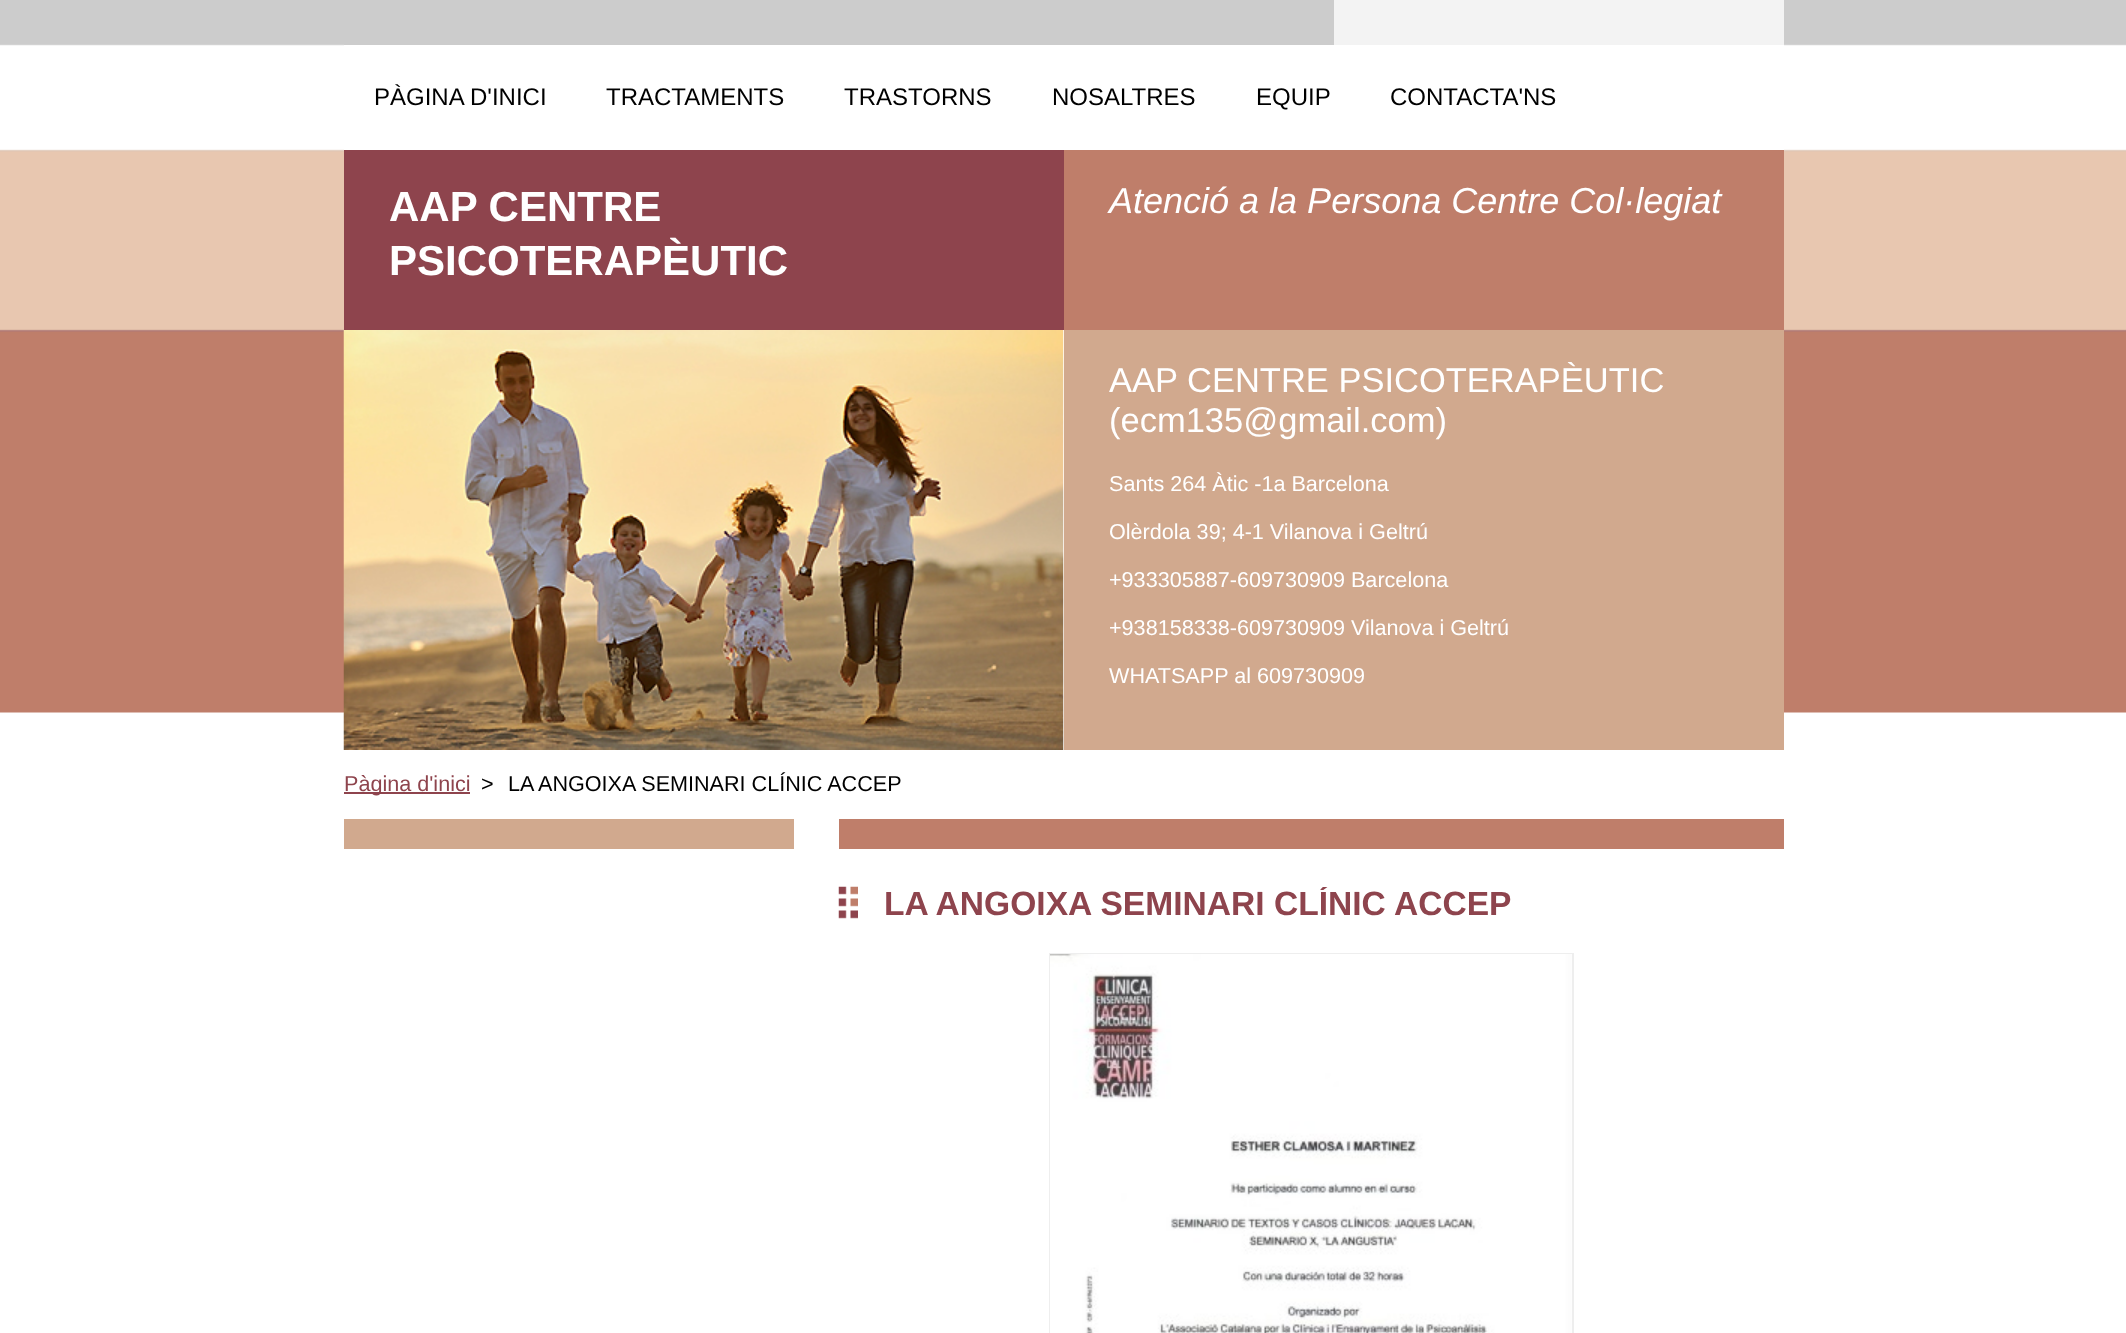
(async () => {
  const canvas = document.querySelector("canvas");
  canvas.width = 2126;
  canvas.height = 1333;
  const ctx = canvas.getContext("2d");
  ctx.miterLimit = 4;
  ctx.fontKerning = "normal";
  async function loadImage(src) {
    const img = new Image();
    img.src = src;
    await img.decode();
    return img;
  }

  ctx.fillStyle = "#ffffff";
  ctx.fillRect(0, 0, 2126, 1333);
  ctx.drawImage(await loadImage("img/1.png"), 0, 0, 2126, 713);
  for (const [x, y, w, h, color] of [
    [344, 44, 990, 1, "#cccccc"],
    [1334, 0, 450, 45, "#f3f3f3"],
    [344, 45, 1440, 105, "#ffffff"],
    [344, 150, 720, 180, "#8e444d"],
    [1064, 150, 720, 180, "#bf7e6a"],
    [1063, 330, 1, 383, "#ffffff"],
  ]) {
    ctx.fillStyle = color;
    ctx.fillRect(x, y, w, h);
  }
  ctx.drawImage(await loadImage("img/2.png"), 343, 330, 721, 420);
  for (const [x, y, w, h, color] of [
    [1064, 330, 720, 420, "#d1a98e"],
    [344, 792, 126, 2, "#8e444d"],
    [344, 819, 450, 30, "#d1a98e"],
    [839, 819, 945, 30, "#bf7e6a"],
  ]) {
    ctx.fillStyle = color;
    ctx.fillRect(x, y, w, h);
  }
  ctx.drawImage(await loadImage("img/3.png"), 838, 886, 20, 33);
  ctx.strokeStyle = "#eeeeee";
  ctx.lineWidth = 2;
  ctx.strokeRect(1050, 954, 523, 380);
  ctx.drawImage(await loadImage("img/4.png"), 1050, 954, 522, 379);
  ctx.font = "24px Liberation Sans";
  ctx.fillStyle = "#000000";
  for (const [text, x, y] of [
    ["PÀGINA D'INICI", 374, 105],
    ["TRACTAMENTS", 606, 105],
    ["TRASTORNS", 844, 105],
    ["NOSALTRES", 1052, 105],
    ["EQUIP", 1256, 105],
    ["CONTACTA'NS", 1390, 105],
  ]) {
    ctx.fillText(text, x, y);
  }
  ctx.font = "bold 42px Liberation Sans";
  ctx.fillStyle = "#ffffff";
  ctx.fillText("AAP CENTRE", 389, 221);
  ctx.fillText("PSICOTERAPÈUTIC", 389, 275);
  ctx.font = "italic 36px Liberation Sans";
  ctx.fillText("Atenció a la Persona Centre Col·legiat", 1109, 213);
  ctx.font = "34.5px Liberation Sans";
  ctx.fillText("AAP CENTRE PSICOTERAPÈUTIC", 1109, 392);
  ctx.fillText("(ecm135@gmail.com)", 1109, 432);
  ctx.font = "21.6px Liberation Sans";
  for (const [text, x, y] of [
    ["Sants 264 Àtic -1a Barcelona", 1109, 491],
    ["Olèrdola 39; 4-1 Vilanova i Geltrú", 1109, 539],
    ["+933305887-609730909 Barcelona", 1109, 587],
    ["+938158338-609730909 Vilanova i Geltrú", 1109, 635],
    ["WHATSAPP al 609730909", 1109, 683],
  ]) {
    ctx.fillText(text, x, y);
  }
  ctx.fillStyle = "#8e444d";
  ctx.fillText("Pàgina d'inici", 344, 791);
  ctx.fillStyle = "#000000";
  ctx.fillText(">", 481, 791);
  ctx.fillText("LA ANGOIXA SEMINARI CLÍNIC ACCEP", 508, 791);
  ctx.save();
  ctx.beginPath();
  ctx.rect(839, 887, 945, 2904);
  ctx.clip();
  ctx.font = "bold 33.6px Liberation Sans";
  ctx.fillStyle = "#8e444d";
  ctx.fillText("LA ANGOIXA SEMINARI CLÍNIC ACCEP", 884, 915);
  ctx.restore();
})();
